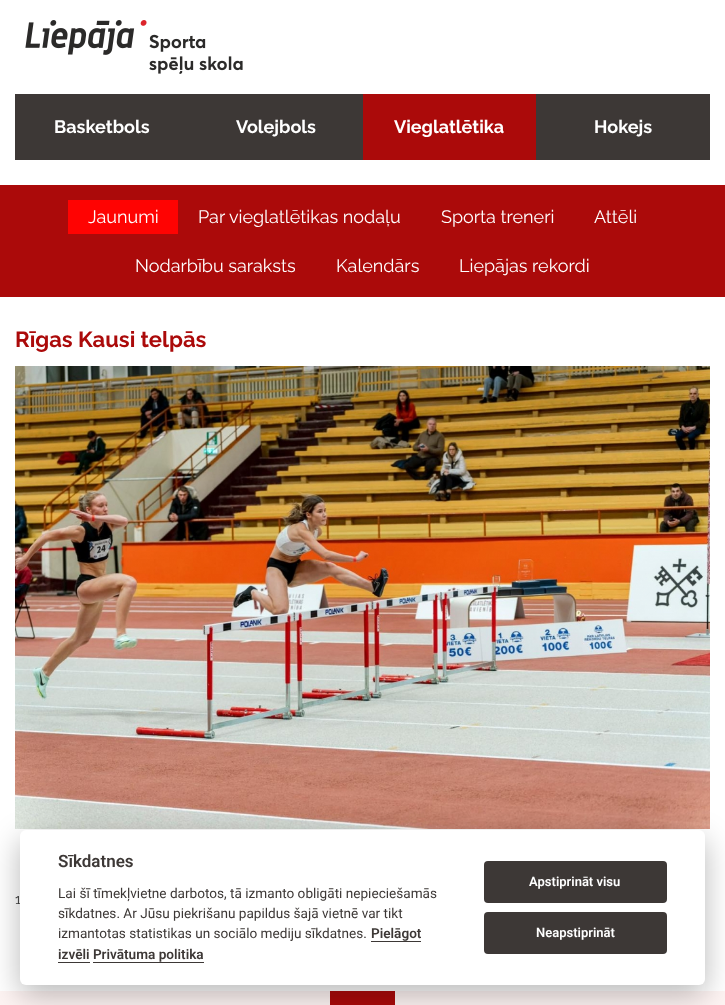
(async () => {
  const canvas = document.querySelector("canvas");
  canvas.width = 725;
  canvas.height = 1005;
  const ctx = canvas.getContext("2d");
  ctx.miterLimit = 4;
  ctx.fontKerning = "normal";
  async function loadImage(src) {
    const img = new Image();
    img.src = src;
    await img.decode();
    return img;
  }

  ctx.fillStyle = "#fef4f3";
  ctx.fillRect(0, 0, 725, 1005);
  ctx.fillStyle = "#ffffff";
  ctx.fillRect(0, 0, 725, 185);
  ctx.drawImage(await loadImage("img/1.png"), 25, 20, 218, 54);
  for (const [x, y, w, h, color] of [
    [15, 94, 348, 66, "#3d3836"],
    [363, 94, 173, 66, "#ab0a0a"],
    [536, 94, 174, 66, "#3d3836"],
    [0, 185, 725, 112, "#ab0a0a"],
    [0, 297, 725, 694, "#ffffff"],
    [68, 200, 110, 34, "#ff0302"],
  ]) {
    ctx.fillStyle = color;
    ctx.fillRect(x, y, w, h);
  }
  ctx.drawImage(await loadImage("img/2.png"), 15, 366, 695, 463);
  ctx.fillStyle = "#ab0a0a";
  ctx.fillRect(330, 991, 65, 14);
  ctx.fillStyle = "rgba(2, 2, 3, 0.28)";
  ctx.filter = "blur(15px)";
  ctx.beginPath();
  ctx.roundRect(20, 840, 685, 155, 6);
  ctx.fill();
  ctx.filter = "none";
  ctx.font = "bold 18px Raleway";
  ctx.fillStyle = "#ffffff";
  for (const [text, x, y] of [
    ["Basketbols", 54, 133],
    ["Volejbols", 236, 133],
    ["Vieglatlētika", 394, 133],
    ["Hokejs", 594, 133],
  ]) {
    ctx.fillText(text, x, y);
  }
  ctx.font = "18px Raleway";
  for (const [text, x, y] of [
    ["Jaunumi", 88, 223],
    ["Par vieglatlētikas nodaļu", 198, 223],
    ["Sporta treneri", 441, 223],
    ["Attēli", 594, 223],
    ["Nodarbību saraksts", 135, 272],
    ["Kalendārs", 336, 272],
    ["Liepājas rekordi", 459, 272],
  ]) {
    ctx.fillText(text, x, y);
  }
  ctx.font = "bold 22px Raleway";
  ctx.fillStyle = "#ab0a0a";
  ctx.fillText("Rīgas Kausi telpās", 15, 347);
  ctx.font = "14px Raleway";
  ctx.fillStyle = "#333333";
  ctx.fillText("1", 15, 904);
  ctx.fillStyle = "#ffffff";
  ctx.beginPath();
  ctx.roundRect(20, 830, 685, 155, 6);
  ctx.fill();
  ctx.font = "600 17px Roboto";
  ctx.fillStyle = "#3d3836";
  ctx.fillText("Sīkdatnes", 58, 867);
  ctx.font = "13.6px Roboto";
  for (const [text, x, y] of [
    ["Lai šī tīmekļvietne darbotos, tā izmanto obligāti nepieciešamās", 58, 898],
    ["sīkdatnes. Ar Jūsu piekrišanu papildus šajā vietnē var tikt", 58, 918],
    ["izmantotas statistikas un sociālo mediju sīkdatnes.", 58, 938],
  ]) {
    ctx.fillText(text, x, y);
  }
  ctx.font = "600 13.6px Roboto";
  ctx.fillText("Pielāgot", 371, 938);
  ctx.fillRect(371, 941, 50, 1);
  ctx.fillText("izvēli Privātuma politika", 58, 959);
  ctx.fillRect(58, 962, 32, 1);
  ctx.fillRect(93, 962, 111, 1);
  ctx.beginPath();
  ctx.roundRect(484, 861, 183, 42, 4);
  ctx.fill();
  ctx.font = "600 13px Roboto";
  ctx.fillStyle = "#ffffff";
  ctx.fillText("Apstiprināt visu", 529, 886);
  ctx.fillStyle = "#3d3836";
  ctx.beginPath();
  ctx.roundRect(484, 912, 183, 42, 4);
  ctx.fill();
  ctx.fillStyle = "#ffffff";
  ctx.fillText("Neapstiprināt", 536, 937);
})();
